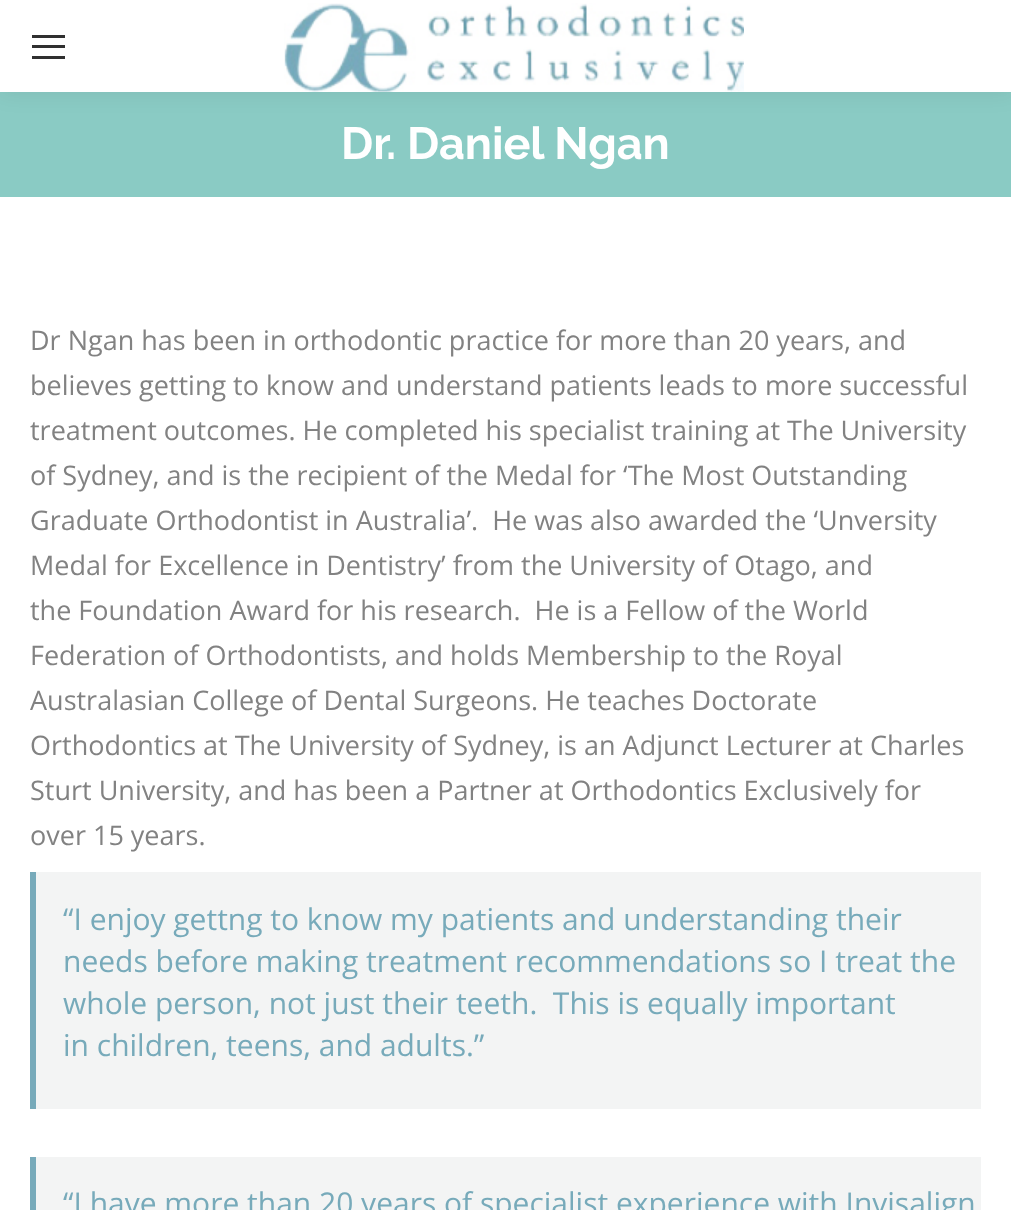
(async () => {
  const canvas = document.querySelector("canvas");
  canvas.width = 1011;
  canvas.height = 1210;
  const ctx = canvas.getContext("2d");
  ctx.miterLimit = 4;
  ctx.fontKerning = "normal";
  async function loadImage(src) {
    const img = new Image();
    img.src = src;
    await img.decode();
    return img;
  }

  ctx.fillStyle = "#ffffff";
  ctx.fillRect(0, 0, 1011, 1210);
  ctx.fillStyle = "#8acbc4";
  ctx.fillRect(0, 92, 1011, 105);
  ctx.fillStyle = "rgba(0, 0, 0, 0.07)";
  ctx.filter = "blur(11px)";
  ctx.beginPath();
  ctx.rect(-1, -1, 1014, 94);
  ctx.fill();
  ctx.filter = "none";
  for (const [x, y, w, h, color] of [
    [0, 0, 1011, 92, "#ffffff"],
    [32, 35, 33, 3, "#303030"],
    [32, 45, 33, 3, "#303030"],
    [32, 56, 33, 3, "#303030"],
  ]) {
    ctx.fillStyle = color;
    ctx.fillRect(x, y, w, h);
  }
  ctx.drawImage(await loadImage("img/1.png"), 284, 3, 460, 89);
  for (const [x, y, w, h, color] of [
    [36, 872, 945, 237, "#f3f4f4"],
    [30, 872, 6, 237, "#77aaba"],
    [36, 1157, 945, 53, "#f3f4f4"],
    [30, 1157, 6, 53, "#77aaba"],
  ]) {
    ctx.fillStyle = color;
    ctx.fillRect(x, y, w, h);
  }
  ctx.font = "bold 45px Raleway";
  ctx.fillStyle = "#ffffff";
  ctx.fillText("Dr. Daniel Ngan", 341, 159);
  ctx.font = "27px Open Sans";
  ctx.fillStyle = "#828282";
  for (const [text, x, y] of [
    ["Dr Ngan has been in orthodontic practice for more than 20 years, and", 30, 350],
    ["believes getting to know and understand patients leads to more successful", 30, 395],
    ["treatment outcomes. He completed his specialist training at The University", 30, 440],
    ["of Sydney, and is the recipient of the Medal for ‘The Most Outstanding", 30, 485],
    ["Graduate Orthodontist in Australia’.  He was also awarded the ‘Unversity", 30, 530],
    ["Medal for Excellence in Dentistry’ from the University of Otago, and", 30, 575],
    ["the Foundation Award for his research.  He is a Fellow of the World", 30, 620],
    ["Federation of Orthodontists, and holds Membership to the Royal", 30, 665],
    ["Australasian College of Dental Surgeons. He teaches Doctorate", 30, 710],
    ["Orthodontics at The University of Sydney, is an Adjunct Lecturer at Charles", 30, 755],
    ["Sturt University, and has been a Partner at Orthodontics Exclusively for", 30, 800],
    ["over 15 years.", 30, 845],
  ]) {
    ctx.fillText(text, x, y);
  }
  ctx.font = "30px Open Sans";
  ctx.fillStyle = "#77aaba";
  for (const [text, x, y] of [
    ["“I enjoy gettng to know my patients and understanding their", 63, 930],
    ["needs before making treatment recommendations so I treat the", 63, 972],
    ["whole person, not just their teeth.  This is equally important", 63, 1014],
    ["in children, teens, and adults.”", 63, 1056],
    ["“I have more than 20 years of specialist experience with Invisalign", 63, 1214],
  ]) {
    ctx.fillText(text, x, y);
  }
})();
